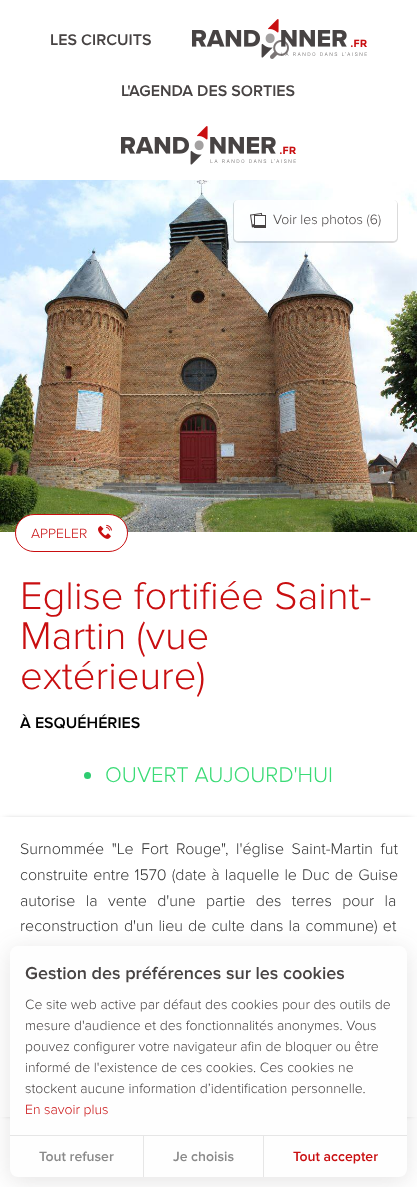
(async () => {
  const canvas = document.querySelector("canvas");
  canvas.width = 417;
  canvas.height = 1187;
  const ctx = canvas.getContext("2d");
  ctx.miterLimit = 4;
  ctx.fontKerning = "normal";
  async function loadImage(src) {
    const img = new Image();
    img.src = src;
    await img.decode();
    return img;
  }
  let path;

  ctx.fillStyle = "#ffffff";
  ctx.fillRect(0, 0, 417, 1187);
  ctx.drawImage(await loadImage("img/2.png"), 270, 40, 19, 19);
  ctx.drawImage(await loadImage("img/1.png"), 192, 19, 175, 39);
  ctx.drawImage(await loadImage("img/3.png"), 121, 126, 175, 39);
  ctx.drawImage(await loadImage("img/4.png"), 0, 180, 417, 352);
  ctx.save();
  path = new Path2D("M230 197H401V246H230ZM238 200H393C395 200 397 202 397 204V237C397 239 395 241 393 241H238C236 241 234 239 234 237V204C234 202 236 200 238 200Z");
  ctx.clip(path, "evenodd");
  ctx.fillStyle = "rgba(0, 0, 0, 0.14)";
  ctx.filter = "blur(0.5px)";
  ctx.beginPath();
  ctx.roundRect(233, 200, 165, 43, 5);
  ctx.fill();
  ctx.filter = "none";
  ctx.restore();
  ctx.fillStyle = "rgba(255, 255, 255, 0.8)";
  ctx.beginPath();
  ctx.roundRect(234, 200, 163, 41, 4);
  ctx.fill();
  ctx.drawImage(await loadImage("img/5.png"), 250, 212, 16, 16);
  ctx.fillStyle = "#ffffff";
  ctx.beginPath();
  ctx.roundRect(15.5, 514.5, 112, 37, 18.5);
  ctx.fill();
  ctx.strokeStyle = "#c90e10";
  ctx.stroke();
  ctx.drawImage(await loadImage("img/6.png"), 98, 524, 14, 15);
  ctx.fillStyle = "#2ecc71";
  ctx.beginPath();
  ctx.arc(87.5, 775.5, 3.5, 0, Math.PI * 2);
  ctx.fill();
  ctx.save();
  path = new Path2D("M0 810H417V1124H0ZM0 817H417V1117H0Z");
  ctx.clip(path, "evenodd");
  ctx.fillStyle = "#000000";
  ctx.filter = "blur(3.5px)";
  ctx.beginPath();
  ctx.rect(5, 822, 407, 290);
  ctx.fill();
  ctx.filter = "none";
  ctx.restore();
  ctx.fillStyle = "rgba(71, 67, 67, 0.15)";
  ctx.filter = "blur(12px)";
  ctx.beginPath();
  ctx.roundRect(10, 950, 397, 231, 8);
  ctx.fill();
  ctx.filter = "none";
  ctx.fillStyle = "#fefefe";
  ctx.beginPath();
  ctx.roundRect(10, 946, 397, 231, 8);
  ctx.fill();
  for (const [x, y, w, h, color] of [
    [10, 1135, 397, 1, "#e6e6e6"],
    [143, 1136, 1, 41, "#e6e6e6"],
    [263, 1136, 1, 41, "#e6e6e6"],
  ]) {
    ctx.fillStyle = color;
    ctx.fillRect(x, y, w, h);
  }
  ctx.font = "600 16px Proxima Nova";
  ctx.fillStyle = "#474343";
  ctx.fillText("LES CIRCUITS", 50, 45);
  ctx.fillText("L'AGENDA DES SORTIES", 121, 96);
  ctx.font = "300 14px Proxima Nova";
  ctx.fillText("Voir les photos (6)", 273, 224);
  ctx.fillStyle = "#c90e10";
  ctx.fillText("APPELER", 31, 538);
  ctx.font = "300 40px Proxima Nova";
  for (const [text, x, y] of [
    ["Eglise fortifiée Saint-", 20, 609],
    ["Martin (vue", 20, 649],
    ["extérieure)", 20, 689],
  ]) {
    ctx.fillText(text, x, y);
  }
  ctx.font = "600 16px Proxima Nova";
  ctx.fillStyle = "#000000";
  ctx.fillText("À ESQUÉHÉRIES", 20, 728);
  ctx.font = "300 22px Proxima Nova";
  ctx.fillStyle = "#3adb76";
  ctx.fillText("OUVERT AUJOURD'HUI", 105, 782);
  ctx.wordSpacing = "3.5px";
  ctx.font = "300 16px Proxima Nova";
  ctx.fillStyle = "#333333";
  ctx.fillText("Surnommée \"Le Fort Rouge\", l'église Saint-Martin fut", 20, 854);
  ctx.wordSpacing = "1px";
  ctx.fillText("construite entre 1570 (date à laquelle le Duc de Guise", 20, 880);
  ctx.wordSpacing = "6.25px";
  ctx.fillText("autorise la vente d'une partie des terres pour la", 20, 906);
  ctx.wordSpacing = "1px";
  ctx.fillText("reconstruction d'un lieu de culte dans la commune) et", 20, 931);
  ctx.wordSpacing = "0px";
  ctx.font = "600 18px Proxima Nova";
  ctx.fillStyle = "#474343";
  ctx.fillText("Gestion des préférences sur les cookies", 25, 979);
  ctx.font = "300 14px Proxima Nova";
  for (const [text, x, y] of [
    ["Ce site web active par défaut des cookies pour des outils de", 25, 1009],
    ["mesure d'audience et des fonctionnalités anonymes. Vous", 25, 1030],
    ["pouvez configurer votre navigateur afin de bloquer ou être", 25, 1051],
    ["informé de l'existence de ces cookies. Ces cookies ne", 25, 1072],
    ["stockent aucune information d’identification personnelle.", 25, 1093],
  ]) {
    ctx.fillText(text, x, y);
  }
  ctx.fillStyle = "#c90e10";
  ctx.fillText("En savoir plus", 25, 1114);
  ctx.font = "600 14px Proxima Nova";
  ctx.fillStyle = "#8a8a8a";
  ctx.fillText("Tout refuser", 39, 1161);
  ctx.fillText("Je choisis", 173, 1161);
  ctx.fillStyle = "#c90e10";
  ctx.fillText("Tout accepter", 293, 1161);
})();
